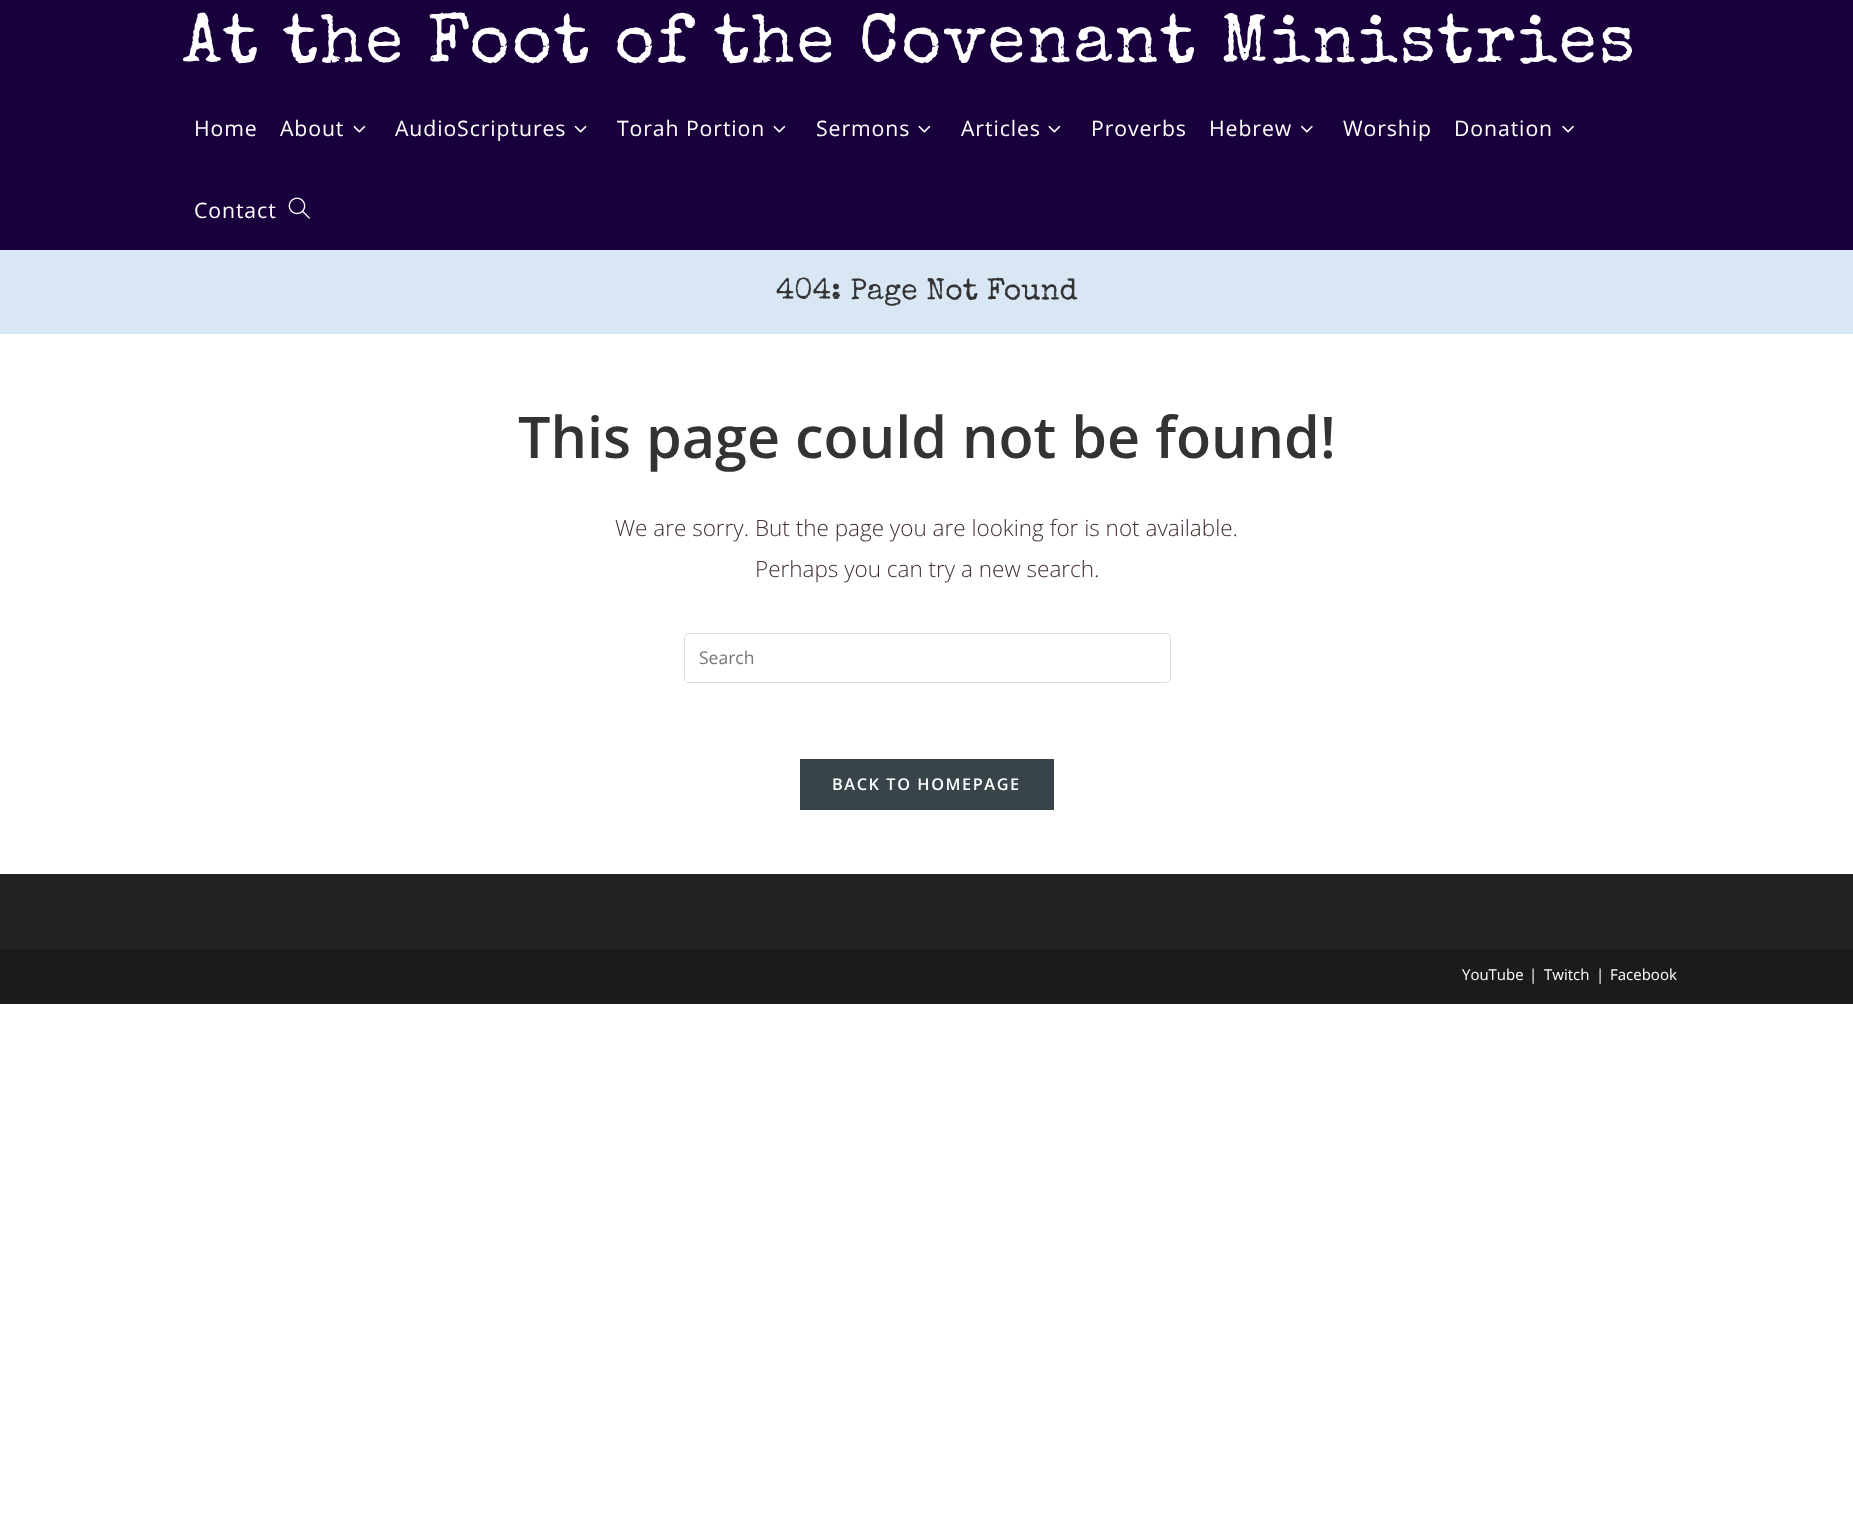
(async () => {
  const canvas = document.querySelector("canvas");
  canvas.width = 1853;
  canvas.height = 1513;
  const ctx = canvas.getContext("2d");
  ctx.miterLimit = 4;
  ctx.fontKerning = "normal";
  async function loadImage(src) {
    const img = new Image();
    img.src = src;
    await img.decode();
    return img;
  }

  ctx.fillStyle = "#ffffff";
  ctx.fillRect(0, 0, 1853, 1513);
  ctx.fillStyle = "#19003d";
  ctx.fillRect(0, 0, 1853, 250);
  ctx.drawImage(await loadImage("img/1.png"), 353, 125, 13, 8);
  ctx.drawImage(await loadImage("img/2.png"), 574, 125, 13, 8);
  ctx.drawImage(await loadImage("img/1.png"), 773, 125, 13, 8);
  ctx.drawImage(await loadImage("img/1.png"), 918, 125, 13, 8);
  ctx.drawImage(await loadImage("img/1.png"), 1048, 125, 13, 8);
  ctx.drawImage(await loadImage("img/3.png"), 1301, 125, 12, 8);
  ctx.drawImage(await loadImage("img/4.png"), 1562, 125, 12, 8);
  ctx.drawImage(await loadImage("img/5.png"), 288, 197, 22, 22);
  ctx.fillStyle = "#d9e7f4";
  ctx.fillRect(0, 250, 1853, 84);
  ctx.beginPath();
  ctx.roundRect(684.5, 633.5, 486, 49, 3.5);
  ctx.strokeStyle = "#dddddd";
  ctx.stroke();
  for (const [x, y, w, h, color] of [
    [800, 759, 254, 51, "#38444a"],
    [0, 874, 1853, 75, "#222222"],
    [0, 949, 1853, 55, "#1b1b1b"],
  ]) {
    ctx.fillStyle = color;
    ctx.fillRect(x, y, w, h);
  }
  ctx.letterSpacing = "2.4px";
  ctx.font = "68.75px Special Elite";
  ctx.fillStyle = "#ffffff";
  ctx.fillText("At the Foot of the Covenant Ministries", 183, 61);
  ctx.letterSpacing = "0.9px";
  ctx.font = "21.25px Open Sans";
  for (const [text, x, y] of [
    ["Home", 194, 136],
    ["About", 280, 136],
    ["AudioScriptures", 395, 136],
    ["Torah Portion", 617, 136],
    ["Sermons", 816, 136],
    ["Articles", 961, 136],
    ["Proverbs", 1091, 136],
    ["Hebrew", 1209, 136],
    ["Worship", 1343, 136],
    ["Donation", 1454, 136],
    ["Contact", 194, 218],
  ]) {
    ctx.fillText(text, x, y);
  }
  ctx.letterSpacing = "0px";
  ctx.font = "30px Special Elite";
  ctx.fillStyle = "#333333";
  ctx.fillText("404: Page Not Found", 776, 299);
  ctx.font = "600 57.5px Open Sans";
  ctx.fillText("This page could not be found!", 518, 458);
  ctx.font = "300 22.5px Open Sans";
  ctx.fillStyle = "#442f2f";
  ctx.fillText("We are sorry. But the page you are looking for is not available.", 615, 536);
  ctx.fillText("Perhaps you can try a new search.", 755, 577);
  ctx.font = "17.5px Open Sans";
  ctx.fillStyle = "#757575";
  ctx.fillText("Search", 699, 664);
  ctx.letterSpacing = "1.6px";
  ctx.font = "600 16.25px Open Sans";
  ctx.fillStyle = "#ffffff";
  ctx.fillText("BACK TO HOMEPAGE", 832, 790);
  ctx.letterSpacing = "0px";
  ctx.font = "15px Open Sans";
  for (const [text, x, y] of [
    ["YouTube", 1462, 980],
    ["|", 1529, 980],
    ["Twitch", 1544, 980],
    ["|", 1596, 980],
    ["Facebook", 1610, 980],
  ]) {
    ctx.fillText(text, x, y);
  }
})();
